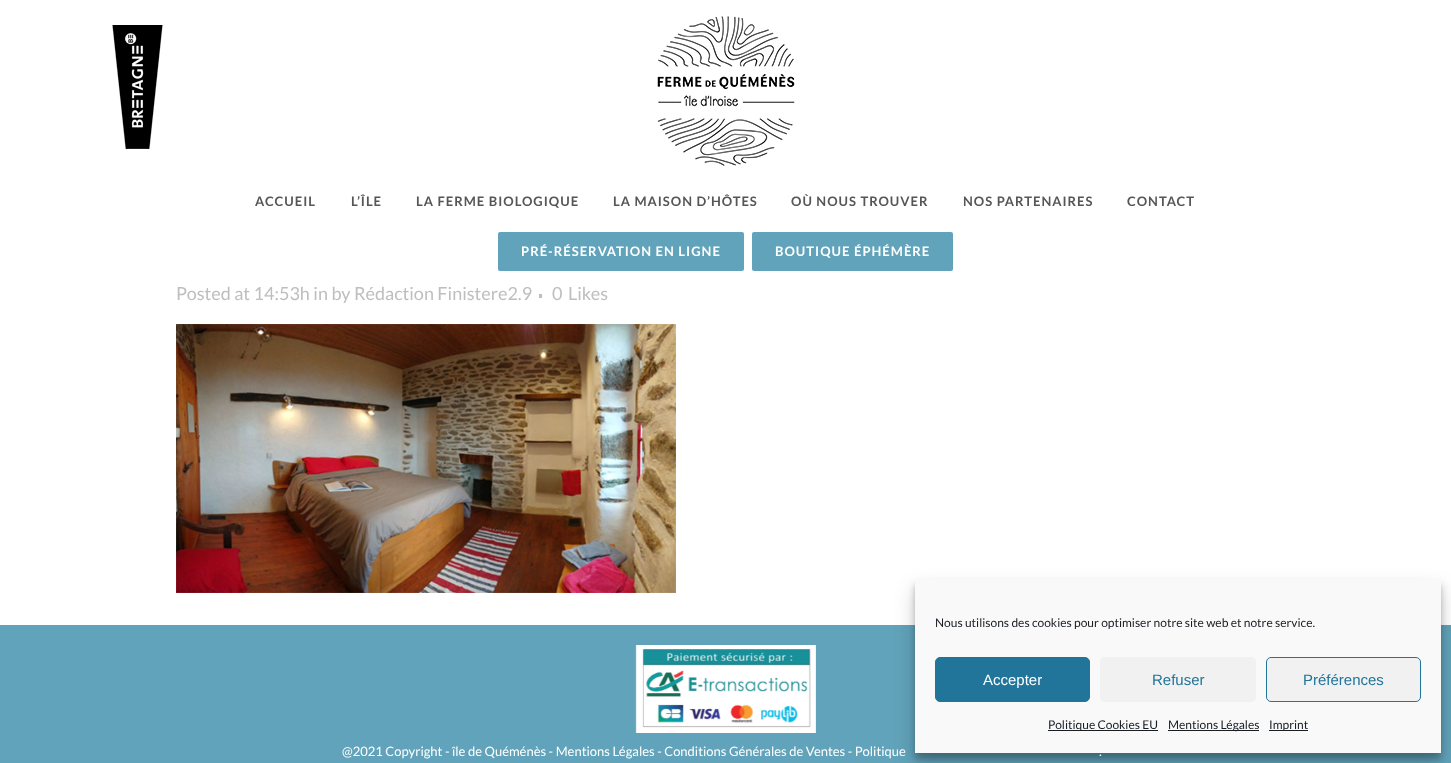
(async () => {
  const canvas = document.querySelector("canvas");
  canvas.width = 1451;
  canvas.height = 763;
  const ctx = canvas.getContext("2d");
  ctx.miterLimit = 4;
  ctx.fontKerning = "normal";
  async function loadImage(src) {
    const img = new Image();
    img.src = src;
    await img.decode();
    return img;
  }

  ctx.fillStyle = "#61a3ba";
  ctx.fillRect(0, 0, 1451, 763);
  ctx.fillStyle = "#ffffff";
  ctx.fillRect(0, 0, 1451, 625);
  ctx.drawImage(await loadImage("img/1.png"), 112, 25, 51, 124);
  ctx.drawImage(await loadImage("img/2.png"), 657, 16, 138, 150);
  ctx.fillStyle = "#61a3ba";
  ctx.beginPath();
  ctx.roundRect(497, 231, 248, 41, 3);
  ctx.fill();
  ctx.strokeStyle = "#ffffff";
  ctx.lineWidth = 2;
  ctx.stroke();
  ctx.beginPath();
  ctx.roundRect(751, 231, 203, 41, 3);
  ctx.fill();
  ctx.stroke();
  ctx.fillStyle = "#bebebe";
  ctx.fillRect(539, 294, 3, 4);
  ctx.drawImage(await loadImage("img/3.png"), 176, 324, 500, 269);
  ctx.drawImage(await loadImage("img/4.png"), 635, 645, 181, 88);
  ctx.fillStyle = "rgba(0, 0, 0, 0.23)";
  ctx.filter = "blur(3px)";
  ctx.beginPath();
  ctx.rect(915, 585, 526, 174);
  ctx.fill();
  ctx.filter = "none";
  ctx.fillStyle = "rgba(0, 0, 0, 0.19)";
  ctx.filter = "blur(10px)";
  ctx.beginPath();
  ctx.rect(915, 589, 526, 174);
  ctx.fill();
  ctx.filter = "none";
  ctx.fillStyle = "#f9f9f9";
  ctx.fillRect(915, 579, 526, 174);
  ctx.fillStyle = "#21759b";
  ctx.beginPath();
  ctx.roundRect(935.5, 657.5, 154, 44, 4.5);
  ctx.fill();
  ctx.strokeStyle = "#21759b";
  ctx.lineWidth = 1;
  ctx.stroke();
  ctx.fillStyle = "#f1f1f1";
  ctx.beginPath();
  ctx.roundRect(1100, 657, 156, 45, 5);
  ctx.fill();
  ctx.beginPath();
  ctx.roundRect(1266.5, 657.5, 154, 44, 4.5);
  ctx.fill();
  ctx.stroke();
  for (const [x, y, w, h, color] of [
    [1048, 730, 110, 1, "#191e23"],
    [1168, 730, 91, 1, "#191e23"],
    [1269, 730, 39, 1, "#191e23"],
  ]) {
    ctx.fillStyle = color;
    ctx.fillRect(x, y, w, h);
  }
  ctx.letterSpacing = "1px";
  ctx.font = "bold 13px Lato";
  ctx.fillStyle = "#565656";
  for (const [text, x, y] of [
    ["ACCUEIL", 255, 206],
    ["L’ÎLE", 351, 206],
    ["LA FERME BIOLOGIQUE", 416, 206],
    ["LA MAISON D’HÔTES", 613, 206],
    ["OÙ NOUS TROUVER", 791, 206],
    ["NOS PARTENAIRES", 963, 206],
    ["CONTACT", 1127, 206],
  ]) {
    ctx.fillText(text, x, y);
  }
  ctx.fillStyle = "#ffffff";
  ctx.fillText("PRÉ-RÉSERVATION EN LIGNE", 521, 256);
  ctx.fillText("BOUTIQUE ÉPHÉMÈRE", 775, 256);
  ctx.letterSpacing = "0px";
  ctx.font = "18px Lato";
  ctx.fillStyle = "#bebebe";
  for (const [text, x, y] of [
    ["Posted at 14:53h in by Rédaction Finistere2.9", 176, 300],
    ["0", 552, 300],
    ["Likes", 568, 300],
  ]) {
    ctx.fillText(text, x, y);
  }
  ctx.font = "13px Lato";
  ctx.fillStyle = "#ffffff";
  ctx.fillText("@2021 Copyright - île de Quéménès - Mentions Légales - Conditions Générales de Ventes - Politique", 342, 756);
  ctx.fillText(".", 1099, 756);
  ctx.font = "12px Lato";
  ctx.fillStyle = "#191e23";
  ctx.fillText("Nous utilisons des cookies pour optimiser notre site web et notre service.", 935, 627);
  ctx.font = "15px Liberation Sans";
  ctx.fillStyle = "#ffffff";
  ctx.fillText("Accepter", 983, 685);
  ctx.fillStyle = "#21759b";
  ctx.fillText("Refuser", 1152, 685);
  ctx.fillText("Préférences", 1303, 685);
  ctx.font = "12px Lato";
  ctx.fillStyle = "#191e23";
  for (const [text, x, y] of [
    ["Politique Cookies EU", 1048, 729],
    ["Mentions Légales", 1168, 729],
    ["Imprint", 1269, 729],
  ]) {
    ctx.fillText(text, x, y);
  }
})();
